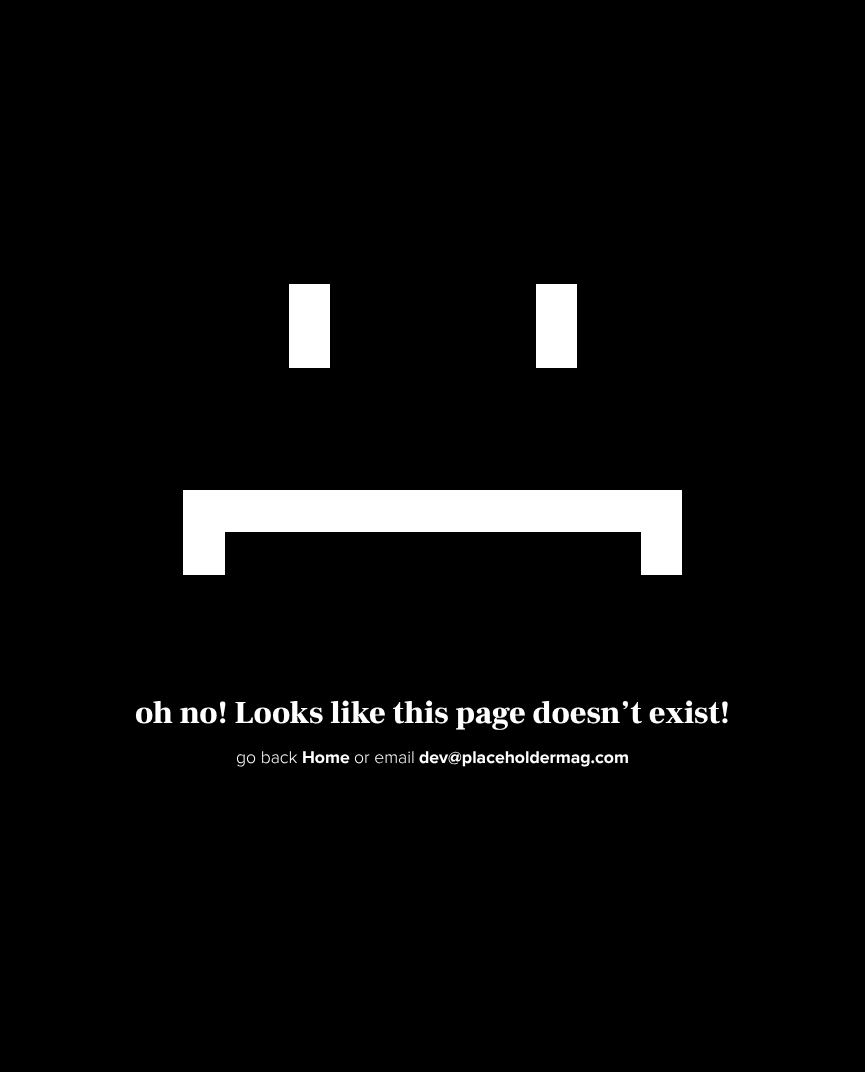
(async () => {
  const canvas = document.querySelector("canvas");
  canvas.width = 865;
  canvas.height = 1072;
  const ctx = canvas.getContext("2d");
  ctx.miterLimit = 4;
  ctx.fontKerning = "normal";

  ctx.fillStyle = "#000000";
  ctx.fillRect(0, 0, 865, 1072);
  for (const [x, y, w, h, color] of [
    [183, 490, 458, 42, "#ffffff"],
    [183, 532, 42, 43, "#ffffff"],
    [641, 490, 41, 85, "#ffffff"],
    [289, 284, 41, 84, "#ffffff"],
    [536, 284, 41, 84, "#ffffff"],
  ]) {
    ctx.fillStyle = color;
    ctx.fillRect(x, y, w, h);
  }
  ctx.font = "900 32px Frank Ruhl Libre";
  ctx.fillText("oh no! Looks like this page doesn’t exist!", 135, 723);
  ctx.font = "300 17.6px Proxima Nova";
  ctx.fillText("go back", 236, 763);
  ctx.font = "bold 17.6px Proxima Nova";
  ctx.fillText("Home", 302, 763);
  ctx.font = "300 17.6px Proxima Nova";
  ctx.fillText("or email", 354, 763);
  ctx.font = "bold 17.6px Proxima Nova";
  ctx.fillText("dev@placeholdermag.com", 419, 763);
})();
